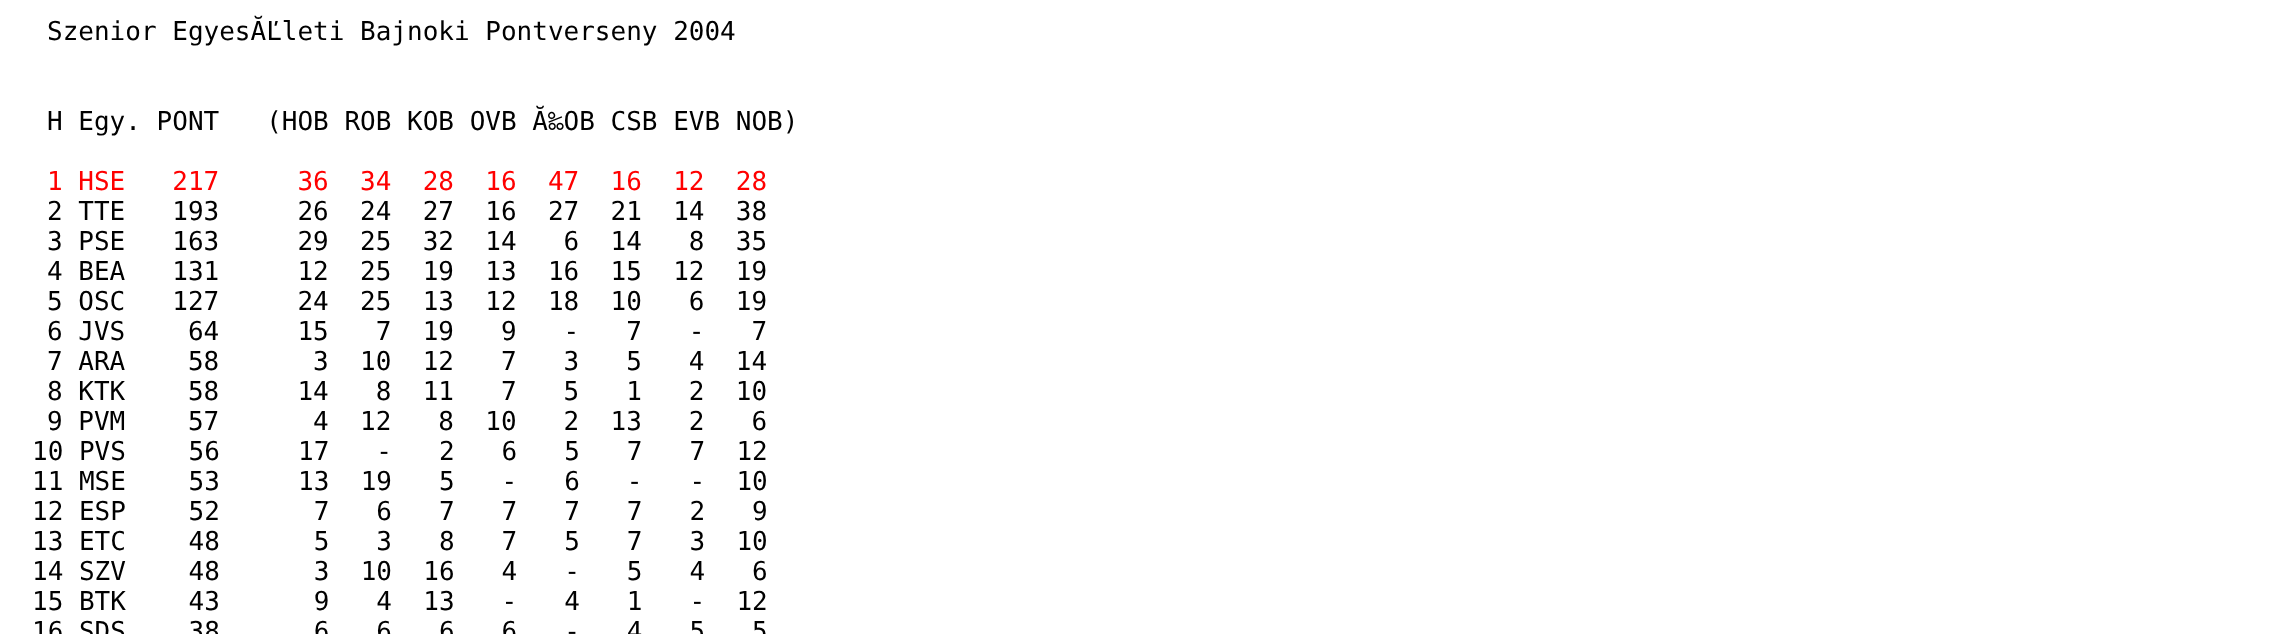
(async () => {
  const canvas = document.querySelector("canvas");
  canvas.width = 2284;
  canvas.height = 634;
  const ctx = canvas.getContext("2d");
  ctx.miterLimit = 4;
  ctx.fontKerning = "normal";

  ctx.fillStyle = "#ffffff";
  ctx.fillRect(0, 0, 2284, 634);
  ctx.font = "26px DejaVu Sans Mono";
  ctx.fillStyle = "#000000";
  ctx.fillText("Szenior EgyesĂĽleti Bajnoki Pontverseny 2004", 47, 40);
  ctx.fillText("H Egy. PONT   (HOB ROB KOB OVB Ă‰OB CSB EVB NOB)", 47, 130);
  ctx.fillStyle = "#ff0000";
  ctx.fillText("1 HSE   217     36  34  28  16  47  16  12  28", 47, 190);
  ctx.fillStyle = "#000000";
  for (const [text, x, y] of [
    ["2 TTE   193     26  24  27  16  27  21  14  38", 47, 220],
    ["3 PSE   163     29  25  32  14   6  14   8  35", 47, 250],
    ["4 BEA   131     12  25  19  13  16  15  12  19", 47, 280],
    ["5 OSC   127     24  25  13  12  18  10   6  19", 47, 310],
    ["6 JVS    64     15   7  19   9   -   7   -   7", 47, 340],
    ["7 ARA    58      3  10  12   7   3   5   4  14", 47, 370],
    ["8 KTK    58     14   8  11   7   5   1   2  10", 47, 400],
    ["9 PVM    57      4  12   8  10   2  13   2   6", 47, 430],
    ["10 PVS    56     17   -   2   6   5   7   7  12", 32, 460],
    ["11 MSE    53     13  19   5   -   6   -   -  10", 32, 490],
    ["12 ESP    52      7   6   7   7   7   7   2   9", 32, 520],
    ["13 ETC    48      5   3   8   7   5   7   3  10", 32, 550],
    ["14 SZV    48      3  10  16   4   -   5   4   6", 32, 580],
    ["15 BTK    43      9   4  13   -   4   1   -  12", 32, 610],
    ["16 SDS    38      6   6   6   6   -   4   5   5", 32, 640],
  ]) {
    ctx.fillText(text, x, y);
  }
})();
